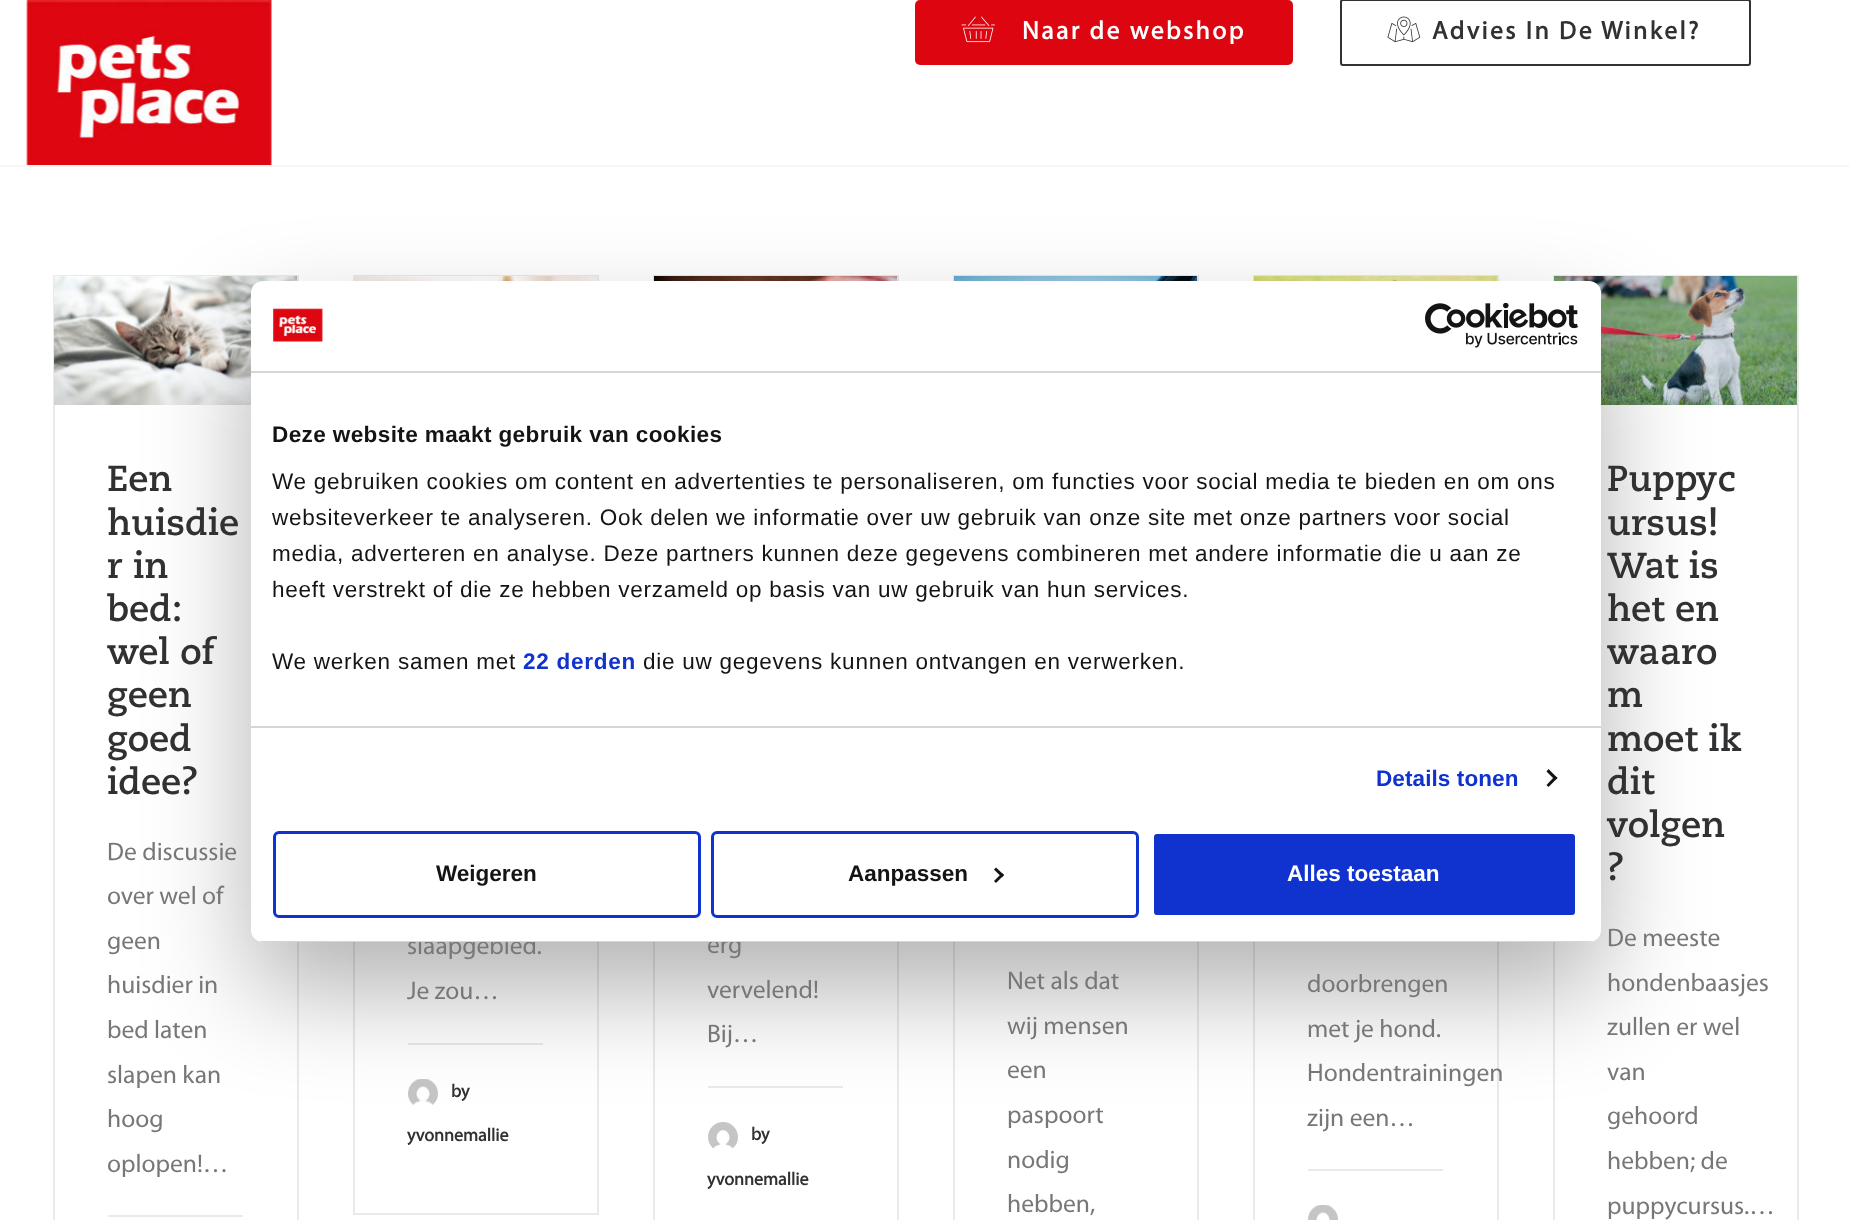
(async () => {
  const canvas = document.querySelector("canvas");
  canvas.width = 1849;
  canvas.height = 1220;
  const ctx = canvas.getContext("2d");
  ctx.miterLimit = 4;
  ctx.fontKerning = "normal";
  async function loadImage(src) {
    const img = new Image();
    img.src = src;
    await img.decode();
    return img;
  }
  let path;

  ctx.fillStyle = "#ffffff";
  ctx.fillRect(0, 0, 1849, 1220);
  ctx.fillStyle = "#f5f5f5";
  ctx.fillRect(0, 165, 1849, 2);
  ctx.drawImage(await loadImage("img/1.png"), 26, 0, 246, 165);
  ctx.fillStyle = "#dd0510";
  ctx.beginPath();
  ctx.roundRect(915, 0, 378, 65, 5);
  ctx.fill();
  ctx.drawImage(await loadImage("img/2.png"), 961, 16, 34, 27);
  ctx.beginPath();
  ctx.roundRect(1341, 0, 409, 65, 2);
  ctx.strokeStyle = "#303133";
  ctx.lineWidth = 2;
  ctx.stroke();
  ctx.drawImage(await loadImage("img/3.png"), 1387, 16, 34, 27);
  ctx.strokeStyle = "#eaeaea";
  ctx.strokeRect(54, 276, 244, 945);
  ctx.drawImage(await loadImage("img/4.png"), 54, 276, 243, 129);
  ctx.fillStyle = "#eaeaea";
  ctx.fillRect(108, 1215, 135, 2);
  ctx.strokeRect(354, 276, 244, 938);
  ctx.drawImage(await loadImage("img/5.png"), 354, 276, 243, 5);
  ctx.fillRect(408, 1043, 135, 2);
  ctx.drawImage(await loadImage("img/6.png"), 408, 1079, 30, 27);
  ctx.strokeRect(654, 276, 244, 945);
  ctx.drawImage(await loadImage("img/7.png"), 654, 276, 243, 5);
  ctx.fillRect(708, 1086, 135, 2);
  ctx.drawImage(await loadImage("img/8.png"), 708, 1122, 30, 27);
  ctx.strokeRect(954, 276, 244, 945);
  ctx.drawImage(await loadImage("img/9.png"), 954, 276, 243, 5);
  ctx.strokeRect(1254, 276, 244, 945);
  ctx.drawImage(await loadImage("img/10.png"), 1254, 276, 243, 5);
  ctx.fillRect(1308, 1169, 135, 2);
  ctx.drawImage(await loadImage("img/11.png"), 1308, 1205, 30, 15);
  ctx.strokeRect(1554, 276, 244, 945);
  ctx.drawImage(await loadImage("img/12.png"), 1554, 276, 243, 129);
  ctx.fillStyle = "rgba(0, 0, 0, 0.3)";
  ctx.filter = "blur(51px)";
  ctx.beginPath();
  ctx.roundRect(251, 329, 1350, 661, 12);
  ctx.fill();
  ctx.filter = "none";
  ctx.letterSpacing = "2.5px";
  ctx.font = "bold 25.5px Myriad";
  ctx.fillStyle = "#ffffff";
  ctx.fillText("Naar de webshop", 1022, 39);
  ctx.fillStyle = "#303133";
  ctx.fillText("Advies In De Winkel?", 1432, 39);
  ctx.letterSpacing = "0px";
  ctx.font = "bold 36px 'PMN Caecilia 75'";
  for (const [text, x, y] of [
    ["Een", 107, 491],
    ["huisdie", 107, 535],
    ["r in", 107, 578],
    ["bed:", 107, 621],
    ["wel of", 107, 664],
    ["geen", 107, 707],
    ["goed", 107, 751],
    ["idee?", 107, 794],
  ]) {
    ctx.fillText(text, x, y);
  }
  ctx.font = "25.5px Myriad";
  ctx.fillStyle = "#777777";
  for (const [text, x, y] of [
    ["De discussie", 107, 860],
    ["over wel of", 107, 904],
    ["geen", 107, 949],
    ["huisdier in", 107, 993],
    ["bed laten", 107, 1038],
    ["slapen kan", 107, 1083],
    ["hoog", 107, 1127],
    ["oplopen!…", 107, 1172],
    ["slaapgebied.", 407, 954],
    ["Je zou…", 407, 999],
  ]) {
    ctx.fillText(text, x, y);
  }
  ctx.font = "bold 18px Myriad";
  ctx.fillStyle = "#303133";
  ctx.fillText("by", 451, 1097);
  ctx.fillText("yvonnemallie", 407, 1141);
  ctx.font = "25.5px Myriad";
  ctx.fillStyle = "#777777";
  for (const [text, x, y] of [
    ["erg", 707, 953],
    ["vervelend!", 707, 998],
    ["Bij…", 707, 1042],
  ]) {
    ctx.fillText(text, x, y);
  }
  ctx.font = "bold 18px Myriad";
  ctx.fillStyle = "#303133";
  ctx.fillText("by", 751, 1140);
  ctx.fillText("yvonnemallie", 707, 1185);
  ctx.font = "25.5px Myriad";
  ctx.fillStyle = "#777777";
  for (const [text, x, y] of [
    ["Net als dat", 1007, 989],
    ["wij mensen", 1007, 1034],
    ["een", 1007, 1078],
    ["paspoort", 1007, 1123],
    ["nodig", 1007, 1168],
    ["hebben,", 1007, 1212],
    ["doorbrengen", 1307, 992],
    ["met je hond.", 1307, 1037],
    ["Hondentrainingen", 1307, 1081],
    ["zijn een…", 1307, 1126],
  ]) {
    ctx.fillText(text, x, y);
  }
  ctx.font = "bold 36px 'PMN Caecilia 75'";
  ctx.fillStyle = "#303133";
  for (const [text, x, y] of [
    ["Puppyc", 1607, 491],
    ["ursus!", 1607, 535],
    ["Wat is", 1607, 578],
    ["het en", 1607, 621],
    ["waaro", 1607, 664],
    ["m", 1607, 707],
    ["moet ik", 1607, 751],
    ["dit", 1607, 794],
    ["volgen", 1607, 837],
    ["?", 1607, 880],
  ]) {
    ctx.fillText(text, x, y);
  }
  ctx.font = "25.5px Myriad";
  ctx.fillStyle = "#777777";
  for (const [text, x, y] of [
    ["De meeste", 1607, 946],
    ["hondenbaasjes", 1607, 991],
    ["zullen er wel", 1607, 1035],
    ["van", 1607, 1080],
    ["gehoord", 1607, 1124],
    ["hebben; de", 1607, 1169],
    ["puppycursus.…", 1607, 1214],
  ]) {
    ctx.fillText(text, x, y);
  }
  ctx.fillStyle = "#ffffff";
  ctx.beginPath();
  ctx.roundRect(251, 281, 1350, 661, 12);
  ctx.fill();
  ctx.fillStyle = "#d6d6d6";
  ctx.fillRect(251, 371, 1350, 2);
  ctx.drawImage(await loadImage("img/13.png"), 273, 308, 50, 34);
  ctx.drawImage(await loadImage("img/14.png"), 1425, 303, 153, 45);
  ctx.fillRect(251, 726, 1350, 2);
  ctx.letterSpacing = "0.4px";
  ctx.font = "bold 22.5px Liberation Sans";
  ctx.fillStyle = "#141414";
  ctx.fillText("Deze website maakt gebruik van cookies", 272, 442);
  ctx.letterSpacing = "0.75px";
  ctx.font = "22.5px Liberation Sans";
  for (const [text, x, y] of [
    ["We gebruiken cookies om content en advertenties te personaliseren, om functies voor social media te bieden en om ons", 272, 489],
    ["websiteverkeer te analyseren. Ook delen we informatie over uw gebruik van onze site met onze partners voor social", 272, 525],
    ["media, adverteren en analyse. Deze partners kunnen deze gegevens combineren met andere informatie die u aan ze", 272, 561],
    ["heeft verstrekt of die ze hebben verzameld op basis van uw gebruik van hun services.", 272, 597],
    ["We werken samen met", 272, 669],
  ]) {
    ctx.fillText(text, x, y);
  }
  ctx.font = "bold 22.5px Liberation Sans";
  ctx.fillStyle = "#1032cf";
  ctx.fillText("22 derden", 523, 669);
  ctx.font = "22.5px Liberation Sans";
  ctx.fillStyle = "#141414";
  ctx.fillText("die uw gegevens kunnen ontvangen en verwerken.", 643, 669);
  ctx.letterSpacing = "0.1px";
  ctx.font = "bold 22.5px Liberation Sans";
  ctx.fillStyle = "#1032cf";
  ctx.fillText("Details tonen", 1376, 786);
  ctx.fillStyle = "#141414";
  path = new Path2D("M1548.5 769L1557.5 778L1555 780L1546.5 771.5Z");
  ctx.fill(path);
  path = new Path2D("M1555 776L1557.5 778L1548.5 787L1546.5 785Z");
  ctx.fill(path);
  ctx.save();
  ctx.beginPath();
  ctx.roundRect(251, 281, 1350, 661, 12);
  ctx.clip();
  ctx.fillStyle = "#d6d6d6";
  ctx.fillRect(251, 941, 1350, 1);
  ctx.restore();
  ctx.beginPath();
  ctx.roundRect(274.5, 832.5, 425, 84, 4.5);
  ctx.strokeStyle = "#1032cf";
  ctx.lineWidth = 3;
  ctx.stroke();
  ctx.letterSpacing = "0px";
  ctx.fillText("Weigeren", 436, 881);
  ctx.beginPath();
  ctx.roundRect(712.5, 832.5, 425, 84, 4.5);
  ctx.stroke();
  ctx.fillText("Aanpassen", 848, 881);
  path = new Path2D("M996 867.5L1004 875L1002 877.5L994 869.5Z");
  ctx.fill(path);
  path = new Path2D("M1002 873L1004 875L996 883L994 881Z");
  ctx.fill(path);
  ctx.fillStyle = "#1032cf";
  ctx.beginPath();
  ctx.roundRect(1152.5, 832.5, 424, 84, 4.5);
  ctx.fill();
  ctx.strokeStyle = "#ffffff";
  ctx.stroke();
  ctx.fillStyle = "#ffffff";
  ctx.fillText("Alles toestaan", 1287, 881);
})();
